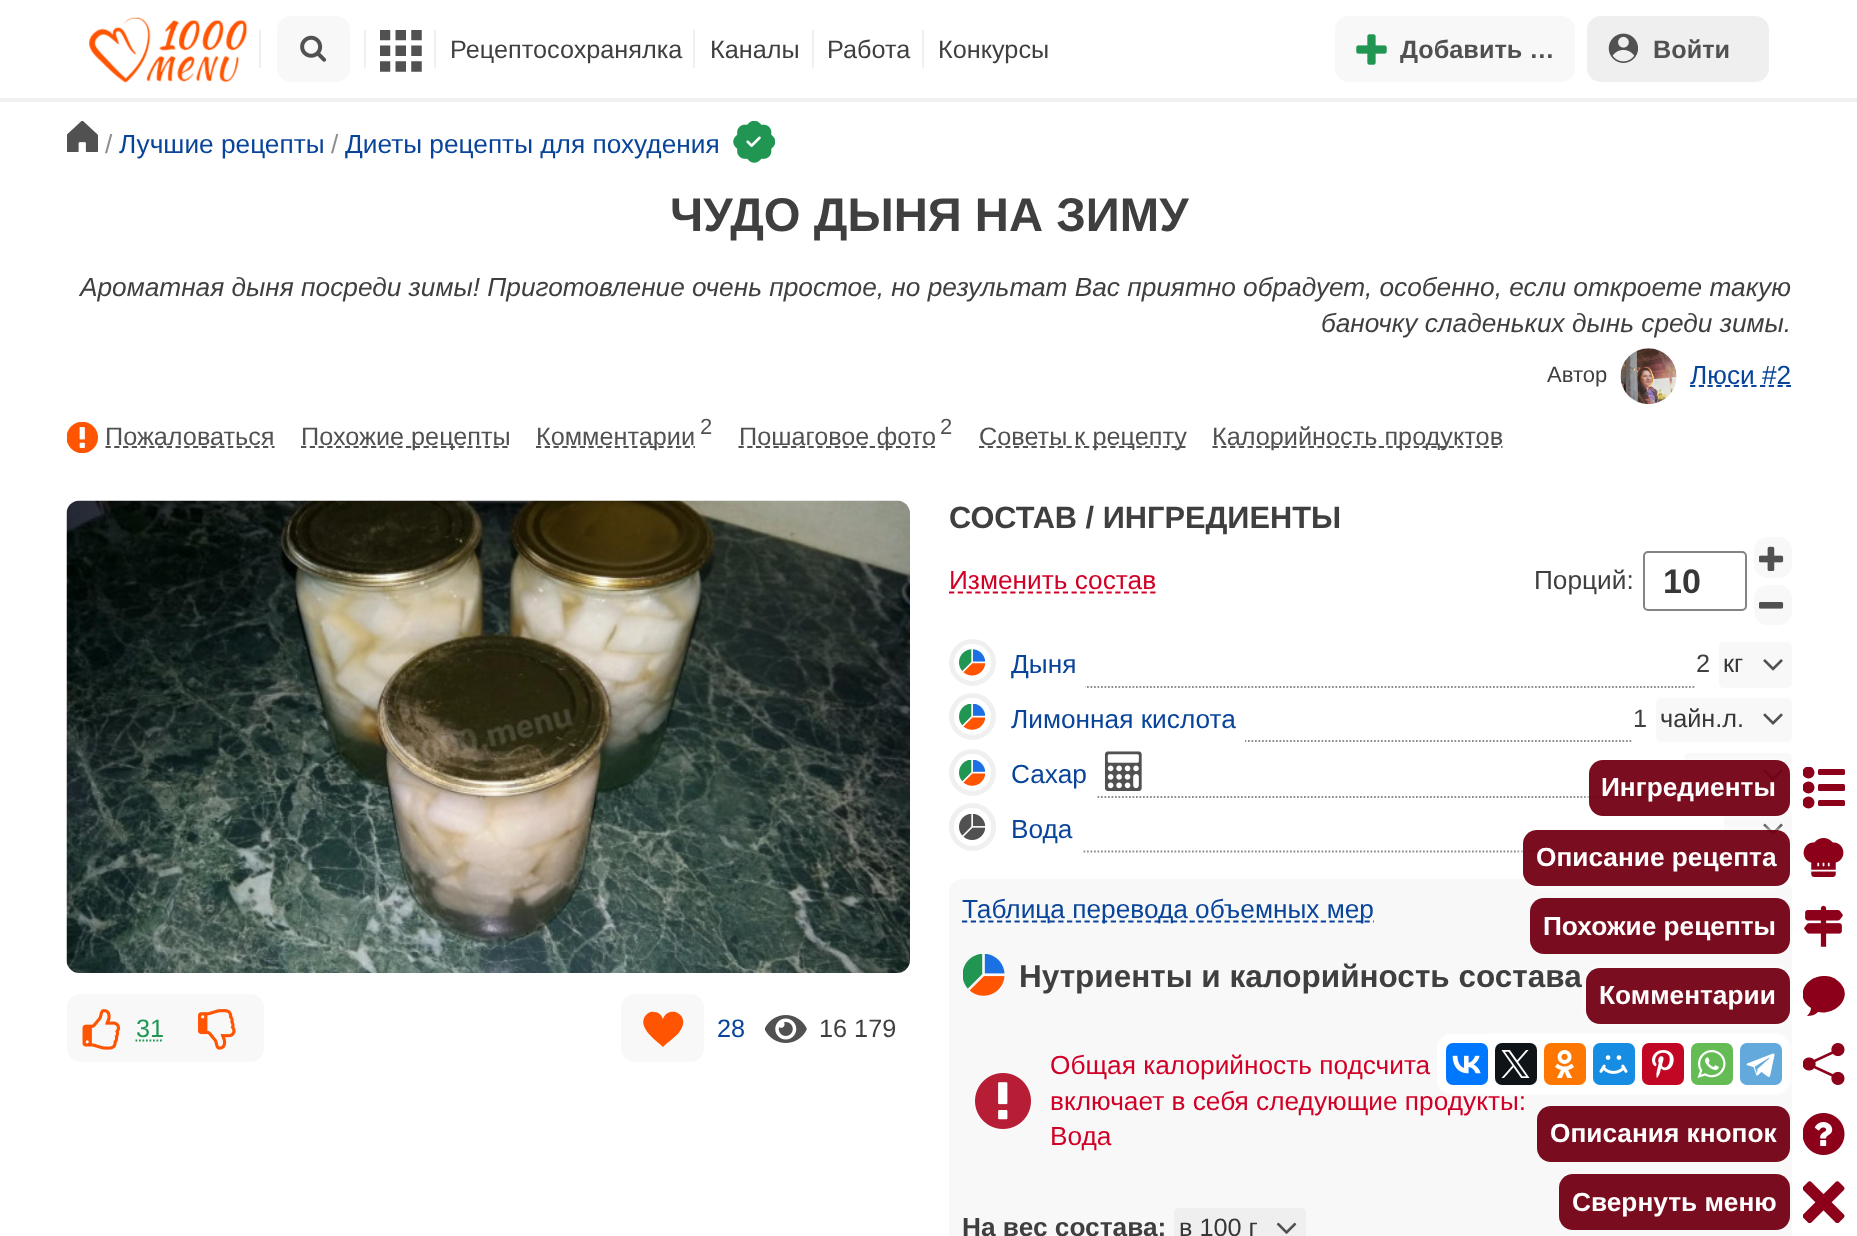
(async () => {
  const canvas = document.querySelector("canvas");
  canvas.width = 1857;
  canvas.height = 1236;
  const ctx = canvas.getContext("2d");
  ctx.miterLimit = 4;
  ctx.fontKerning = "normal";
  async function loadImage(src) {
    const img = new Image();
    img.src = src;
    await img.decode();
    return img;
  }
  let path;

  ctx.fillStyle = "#ffffff";
  ctx.fillRect(0, 0, 1857, 1236);
  ctx.fillStyle = "#f0f0f0";
  ctx.fillRect(0, 98, 1857, 4);
  ctx.drawImage(await loadImage("img/1.png"), 89, 17, 159, 66);
  ctx.fillRect(259, 30, 2, 38);
  ctx.fillStyle = "#f8f8f8";
  ctx.beginPath();
  ctx.roundRect(277, 16, 73, 66, 14);
  ctx.fill();
  ctx.drawImage(await loadImage("img/2.png"), 300, 35, 27, 27);
  ctx.fillStyle = "#f0f0f0";
  ctx.fillRect(364, 30, 2, 38);
  ctx.drawImage(await loadImage("img/3.png"), 380, 30, 42, 42);
  for (const [x, y, w, h, color] of [
    [434, 30, 2, 38, "#f0f0f0"],
    [693, 30, 2, 38, "#f0f0f0"],
    [812, 30, 2, 38, "#f0f0f0"],
    [922, 30, 2, 38, "#f0f0f0"],
  ]) {
    ctx.fillStyle = color;
    ctx.fillRect(x, y, w, h);
  }
  ctx.fillStyle = "#f8f8f8";
  ctx.beginPath();
  ctx.roundRect(1335, 16, 240, 66, 14);
  ctx.fill();
  ctx.drawImage(await loadImage("img/4.png"), 1356, 34, 31, 31);
  ctx.fillStyle = "#efefef";
  ctx.beginPath();
  ctx.roundRect(1587, 16, 182, 66, 14);
  ctx.fill();
  ctx.drawImage(await loadImage("img/5.png"), 1608, 33, 30, 30);
  ctx.drawImage(await loadImage("img/6.png"), 67, 121, 31, 31);
  ctx.drawImage(await loadImage("img/7.png"), 733, 121, 42, 42);
  ctx.drawImage(await loadImage("img/8.png"), 1620, 348, 57, 57);
  path = new Path2D("M1690 386H1791");
  ctx.strokeStyle = "#084499";
  ctx.lineWidth = 1.8;
  ctx.setLineDash([5.25, 3.5]);
  ctx.stroke(path);
  ctx.drawImage(await loadImage("img/9.png"), 67, 422, 31, 31);
  path = new Path2D("M105.5 447H274.5");
  ctx.strokeStyle = "#515151";
  ctx.stroke(path);
  path = new Path2D("M301 447H510");
  ctx.stroke(path);
  path = new Path2D("M536 447H695");
  ctx.stroke(path);
  path = new Path2D("M738.5 447H935");
  ctx.stroke(path);
  path = new Path2D("M979 447H1186");
  ctx.stroke(path);
  path = new Path2D("M1212.5 447H1502.5");
  ctx.stroke(path);
  ctx.drawImage(await loadImage("img/10.png"), 66, 500, 844, 473);
  ctx.fillStyle = "#f8f8f8";
  ctx.beginPath();
  ctx.roundRect(67, 994, 197, 68, 14);
  ctx.fill();
  ctx.drawImage(await loadImage("img/11.png"), 82, 1009, 38, 41);
  path = new Path2D("M135.5 1040.5H163.5");
  ctx.strokeStyle = "#219653";
  ctx.setLineDash([1.75, 1.75]);
  ctx.stroke(path);
  ctx.drawImage(await loadImage("img/12.png"), 198, 1009, 38, 41);
  ctx.beginPath();
  ctx.roundRect(621, 994, 83, 68, 14);
  ctx.fill();
  ctx.fillStyle = "#ff5401";
  path = new Path2D("M654 1012C651 1011 648 1013 646 1015C636 1027 656 1040 663 1047C669 1041 676 1037 680 1031C692 1014 668 1004 663 1019C663 1019 661 1012 654 1012Z");
  ctx.fill(path);
  ctx.drawImage(await loadImage("img/13.png"), 765, 1015, 42, 28);
  path = new Path2D("M949 592.5H1156");
  ctx.strokeStyle = "#d10026";
  ctx.setLineDash([5.25, 3.5]);
  ctx.stroke(path);
  ctx.beginPath();
  ctx.roundRect(1644, 552, 102, 58, 4);
  ctx.strokeStyle = "#848484";
  ctx.lineWidth = 2;
  ctx.setLineDash([]);
  ctx.stroke();
  ctx.fillStyle = "#f8f8f8";
  ctx.beginPath();
  ctx.roundRect(1754, 537, 38, 41, 14);
  ctx.fill();
  ctx.drawImage(await loadImage("img/14.png"), 1759, 546, 25, 25);
  ctx.beginPath();
  ctx.roundRect(1754, 585, 38, 40, 14);
  ctx.fill();
  ctx.drawImage(await loadImage("img/15.png"), 1759, 602, 25, 7);
  ctx.beginPath();
  ctx.arc(972.5, 662.5, 21, 0, Math.PI * 2);
  ctx.strokeStyle = "#f0f0f0";
  ctx.lineWidth = 5;
  ctx.stroke();
  ctx.drawImage(await loadImage("img/16.png"), 959, 649, 26, 27);
  path = new Path2D("M1003 687H1696");
  ctx.strokeStyle = "#8e8e8e";
  ctx.lineWidth = 1.8;
  ctx.setLineDash([1.75, 1.75]);
  ctx.stroke(path);
  ctx.fillStyle = "#ffffff";
  ctx.fillRect(1003, 686, 82, 2);
  ctx.fillStyle = "#f8f8f8";
  ctx.beginPath();
  ctx.roundRect(1719, 642, 73, 46, 5);
  ctx.fill();
  ctx.drawImage(await loadImage("img/17.png"), 1763, 659, 20, 12);
  ctx.beginPath();
  ctx.arc(972.5, 716.5, 21, 0, Math.PI * 2);
  ctx.strokeStyle = "#f0f0f0";
  ctx.lineWidth = 5;
  ctx.setLineDash([]);
  ctx.stroke();
  ctx.drawImage(await loadImage("img/18.png"), 959, 704, 26, 26);
  path = new Path2D("M1003 741H1633");
  ctx.strokeStyle = "#8e8e8e";
  ctx.lineWidth = 1.8;
  ctx.setLineDash([1.75, 1.75]);
  ctx.stroke(path);
  ctx.fillStyle = "#ffffff";
  ctx.fillRect(1003, 740, 240, 2);
  ctx.fillRect(1244, 740, 1, 4);
  ctx.fillStyle = "#f8f8f8";
  ctx.beginPath();
  ctx.roundRect(1656, 698, 136, 44, 5);
  ctx.fill();
  ctx.drawImage(await loadImage("img/19.png"), 1763, 713, 20, 12);
  ctx.beginPath();
  ctx.arc(972.5, 772.5, 21, 0, Math.PI * 2);
  ctx.strokeStyle = "#f0f0f0";
  ctx.lineWidth = 5;
  ctx.setLineDash([]);
  ctx.stroke();
  ctx.drawImage(await loadImage("img/18.png"), 959, 760, 26, 26);
  path = new Path2D("M1003 797H1661");
  ctx.strokeStyle = "#8e8e8e";
  ctx.lineWidth = 1.8;
  ctx.setLineDash([1.75, 1.75]);
  ctx.stroke(path);
  ctx.fillStyle = "#ffffff";
  ctx.fillRect(1003, 796, 93, 2);
  ctx.drawImage(await loadImage("img/20.png"), 1104, 751, 38, 40);
  ctx.fillStyle = "#f8f8f8";
  ctx.beginPath();
  ctx.roundRect(1684, 753, 108, 45, 5);
  ctx.fill();
  ctx.drawImage(await loadImage("img/19.png"), 1763, 769, 20, 12);
  ctx.beginPath();
  ctx.roundRect(951.5, 805.5, 42, 43, 21);
  ctx.strokeStyle = "#f0f0f0";
  ctx.lineWidth = 5;
  ctx.setLineDash([]);
  ctx.stroke();
  ctx.drawImage(await loadImage("img/21.png"), 959, 814, 26, 26);
  path = new Path2D("M1003 851.5H1701");
  ctx.strokeStyle = "#8e8e8e";
  ctx.lineWidth = 1.8;
  ctx.setLineDash([1.75, 1.75]);
  ctx.stroke(path);
  ctx.fillStyle = "#ffffff";
  ctx.fillRect(1003, 850, 79, 3);
  ctx.fillStyle = "#f8f8f8";
  ctx.beginPath();
  ctx.roundRect(1724, 809, 68, 43, 5);
  ctx.fill();
  ctx.drawImage(await loadImage("img/22.png"), 1763, 823, 20, 12);
  ctx.beginPath();
  ctx.roundRect(949, 879, 843, 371, 14);
  ctx.fill();
  path = new Path2D("M962 921.5H1374");
  ctx.strokeStyle = "#084499";
  ctx.setLineDash([5.25, 3.5]);
  ctx.stroke(path);
  ctx.drawImage(await loadImage("img/23.png"), 963, 954, 42, 42);
  ctx.drawImage(await loadImage("img/24.png"), 975, 1073, 56, 56);
  ctx.fillStyle = "#efefef";
  ctx.beginPath();
  ctx.roundRect(1174, 1208, 132, 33, 5);
  ctx.fill();
  ctx.drawImage(await loadImage("img/25.png"), 1276, 1222, 21, 12);
  ctx.save();
  ctx.beginPath();
  ctx.rect(1803, 767, 42, 42);
  ctx.clip();
  ctx.fillStyle = "#8d001a";
  ctx.beginPath();
  ctx.arc(1808.5, 772.5, 6, 0, Math.PI * 2);
  ctx.fill();
  ctx.beginPath();
  ctx.arc(1808.5, 802.5, 6, 0, Math.PI * 2);
  ctx.fill();
  ctx.beginPath();
  ctx.arc(1808.5, 787.5, 6, 0, Math.PI * 2);
  ctx.fill();
  ctx.restore();
  ctx.save();
  path = new Path2D("M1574 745H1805V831H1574ZM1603 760H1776C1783.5 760 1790 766.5 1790 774V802C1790 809.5 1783.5 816 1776 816H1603C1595.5 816 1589 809.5 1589 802V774C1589 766.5 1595.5 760 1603 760Z");
  ctx.clip(path, "evenodd");
  ctx.fillStyle = "#ffffff";
  ctx.filter = "blur(4.5px)";
  ctx.beginPath();
  ctx.roundRect(1589, 760, 201, 56, 14);
  ctx.fill();
  ctx.filter = "none";
  ctx.restore();
  ctx.fillStyle = "rgba(115, 0, 20, 0.95)";
  ctx.beginPath();
  ctx.roundRect(1589, 760, 201, 56, 14);
  ctx.fill();
  ctx.fillStyle = "#8d001a";
  ctx.beginPath();
  ctx.roundRect(1818, 769, 27, 6, 1.5);
  ctx.fill();
  ctx.beginPath();
  ctx.roundRect(1818, 784, 27, 7, 1.5);
  ctx.fill();
  ctx.beginPath();
  ctx.roundRect(1818, 800, 27, 6, 1.5);
  ctx.fill();
  ctx.drawImage(await loadImage("img/26.png"), 1803, 838, 41, 39);
  ctx.save();
  path = new Path2D("M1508 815H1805V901H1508ZM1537 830H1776C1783.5 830 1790 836.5 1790 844V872C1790 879.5 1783.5 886 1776 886H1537C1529.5 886 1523 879.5 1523 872V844C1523 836.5 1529.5 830 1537 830Z");
  ctx.clip(path, "evenodd");
  ctx.fillStyle = "#ffffff";
  ctx.filter = "blur(4.5px)";
  ctx.beginPath();
  ctx.roundRect(1523, 830, 267, 56, 14);
  ctx.fill();
  ctx.filter = "none";
  ctx.restore();
  ctx.fillStyle = "rgba(115, 0, 20, 0.95)";
  ctx.beginPath();
  ctx.roundRect(1523, 830, 267, 56, 14);
  ctx.fill();
  ctx.fillStyle = "#7a0c1f";
  ctx.beginPath();
  ctx.roundRect(1530, 898, 260, 56, 14);
  ctx.fill();
  ctx.drawImage(await loadImage("img/27.png"), 1804, 905, 39, 42);
  ctx.save();
  ctx.beginPath();
  ctx.rect(1803, 975, 42, 42);
  ctx.clip();
  ctx.fillStyle = "#8d001a";
  path = new Path2D("M1824 976C1805 976 1794 997 1811 1008C1811 1011 1809 1014 1807 1016C1811 1016 1815 1015 1818 1012C1837 1016 1855 995 1838 981C1834 977 1829 976 1824 976Z");
  ctx.fill(path);
  ctx.restore();
  ctx.save();
  path = new Path2D("M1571 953H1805V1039H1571ZM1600 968H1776C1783.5 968 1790 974.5 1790 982V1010C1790 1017.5 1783.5 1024 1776 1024H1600C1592.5 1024 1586 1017.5 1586 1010V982C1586 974.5 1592.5 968 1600 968Z");
  ctx.clip(path, "evenodd");
  ctx.fillStyle = "#ffffff";
  ctx.filter = "blur(4.5px)";
  ctx.beginPath();
  ctx.roundRect(1586, 968, 204, 56, 14);
  ctx.fill();
  ctx.filter = "none";
  ctx.restore();
  ctx.fillStyle = "rgba(115, 0, 20, 0.95)";
  ctx.beginPath();
  ctx.roundRect(1586, 968, 204, 56, 14);
  ctx.fill();
  ctx.drawImage(await loadImage("img/28.png"), 1803, 1043, 42, 42);
  ctx.fillStyle = "#ffffff";
  ctx.filter = "blur(4.5px)";
  ctx.beginPath();
  ctx.roundRect(1479, 1036, 311, 56, 14);
  ctx.fill();
  ctx.filter = "none";
  ctx.fillStyle = "#7a0c1f";
  ctx.beginPath();
  ctx.roundRect(1537, 1106, 253, 56, 14);
  ctx.fill();
  ctx.drawImage(await loadImage("img/29.png"), 1803, 1113, 42, 42);
  ctx.beginPath();
  ctx.roundRect(1559, 1174, 231, 56, 14);
  ctx.fill();
  ctx.drawImage(await loadImage("img/30.png"), 1803, 1181, 42, 42);
  ctx.font = "25.25px Liberation Sans";
  ctx.fillStyle = "#3f3f3f";
  for (const [text, x, y] of [
    ["Рецептосохранялка", 450, 58],
    ["Каналы", 710, 58],
    ["Работа", 827, 58],
    ["Конкурсы", 938, 58],
  ]) {
    ctx.fillText(text, x, y);
  }
  ctx.font = "bold 25.25px Liberation Sans";
  ctx.fillStyle = "#515151";
  ctx.fillText("Добавить …", 1400, 58);
  ctx.fillText("Войти", 1653, 58);
  ctx.font = "26.25px Liberation Sans";
  ctx.fillStyle = "#8e8e8e";
  ctx.fillText("/", 105, 153);
  ctx.fillStyle = "#084499";
  ctx.fillText("Лучшие рецепты", 119, 153);
  ctx.fillStyle = "#8e8e8e";
  ctx.fillText("/", 331, 153);
  ctx.fillStyle = "#084499";
  ctx.fillText("Диеты рецепты для похудения", 345, 153);
  ctx.font = "bold 47.25px Liberation Sans";
  ctx.fillStyle = "#3f3f3f";
  ctx.fillText("ЧУДО ДЫНЯ НА ЗИМУ", 670, 231);
  ctx.font = "italic 26.25px Liberation Sans";
  ctx.fillText("Ароматная дыня посреди зимы! Приготовление очень простое, но результат Вас приятно обрадует, особенно, если откроете такую", 80, 296);
  ctx.fillText("баночку сладеньких дынь среди зимы.", 1321, 332);
  ctx.font = "22px Liberation Sans";
  ctx.fillText("Автор", 1547, 382);
  ctx.font = "26.25px Liberation Sans";
  ctx.fillStyle = "#084499";
  ctx.fillText("Люси #2", 1690, 384);
  ctx.font = "25.25px Liberation Sans";
  ctx.fillStyle = "#515151";
  for (const [text, x, y] of [
    ["Пожаловаться", 105, 445],
    ["Похожие рецепты", 301, 445],
    ["Комментарии", 536, 445],
  ]) {
    ctx.fillText(text, x, y);
  }
  ctx.font = "22px Liberation Sans";
  ctx.fillText("2", 700, 434);
  ctx.font = "25.25px Liberation Sans";
  ctx.fillText("Пошаговое фото", 739, 445);
  ctx.font = "22px Liberation Sans";
  ctx.fillText("2", 940, 434);
  ctx.font = "25.25px Liberation Sans";
  ctx.fillText("Советы к рецепту", 979, 445);
  ctx.fillText("Калорийность продуктов", 1212, 445);
  ctx.fillStyle = "#219653";
  ctx.fillText("31", 136, 1037);
  ctx.fillStyle = "#084499";
  ctx.fillText("28", 717, 1037);
  ctx.fillStyle = "#3f3f3f";
  ctx.fillText("16 179", 819, 1037);
  ctx.font = "bold 30.75px Liberation Sans";
  ctx.fillText("СОСТАВ / ИНГРЕДИЕНТЫ", 949, 528);
  ctx.font = "26.25px Liberation Sans";
  ctx.fillStyle = "#d10026";
  ctx.fillText("Изменить состав", 949, 589);
  ctx.fillStyle = "#3f3f3f";
  ctx.fillText("Порций:", 1534, 589);
  ctx.font = "bold 34px Liberation Sans";
  ctx.fillStyle = "#373737";
  ctx.fillText("10", 1663, 593);
  ctx.font = "26.25px Liberation Sans";
  ctx.fillStyle = "#084499";
  ctx.fillText("Дыня", 1011, 673);
  ctx.font = "25.25px Liberation Sans";
  ctx.fillStyle = "#3f3f3f";
  ctx.fillText("2", 1696, 672);
  ctx.fillStyle = "#373737";
  ctx.fillText("кг", 1723, 672);
  ctx.font = "26.25px Liberation Sans";
  ctx.fillStyle = "#084499";
  ctx.fillText("Лимонная кислота", 1011, 728);
  ctx.font = "25.25px Liberation Sans";
  ctx.fillStyle = "#3f3f3f";
  ctx.fillText("1", 1633, 727);
  ctx.fillStyle = "#373737";
  ctx.fillText("чайн.л.", 1660, 727);
  ctx.font = "26.25px Liberation Sans";
  ctx.fillStyle = "#084499";
  for (const [text, x, y] of [
    ["Сахар", 1011, 783],
    ["Вода", 1011, 838],
    ["Таблица перевода объемных мер", 962, 918],
  ]) {
    ctx.fillText(text, x, y);
  }
  ctx.font = "bold 31.5px Liberation Sans";
  ctx.fillStyle = "#3f3f3f";
  ctx.fillText("Нутриенты и калорийность состава", 1019, 987);
  ctx.font = "26.25px Liberation Sans";
  ctx.fillStyle = "#d10026";
  for (const [text, x, y] of [
    ["Общая калорийность подсчита", 1050, 1074],
    ["включает в себя следующие продукты:", 1050, 1110],
    ["Вода", 1050, 1145],
  ]) {
    ctx.fillText(text, x, y);
  }
  ctx.font = "bold 26.25px Liberation Sans";
  ctx.fillStyle = "#3f3f3f";
  ctx.fillText("На вес состава:", 962, 1236);
  ctx.font = "25.25px Liberation Sans";
  ctx.fillStyle = "#373737";
  ctx.fillText("в 100 г", 1179, 1236);
  ctx.font = "bold 26.25px Liberation Sans";
  ctx.fillStyle = "#ffffff";
  for (const [text, x, y] of [
    ["Ингредиенты", 1601, 796],
    ["Описание рецепта", 1536, 866],
    ["Похожие рецепты", 1543, 935],
    ["Комментарии", 1599, 1004],
    ["Описания кнопок", 1550, 1142],
    ["Свернуть меню", 1572, 1211],
  ]) {
    ctx.fillText(text, x, y);
  }
  ctx.beginPath();
  ctx.roundRect(1437, 1034, 353, 60, 14);
  ctx.fill();
  ctx.fillStyle = "#0077ff";
  ctx.beginPath();
  ctx.roundRect(1446, 1043, 42, 42, 7);
  ctx.fill();
  ctx.drawImage(await loadImage("img/31.png"), 1452, 1055, 29, 19);
  ctx.fillStyle = "#0f1419";
  ctx.beginPath();
  ctx.roundRect(1495, 1043, 42, 42, 7);
  ctx.fill();
  ctx.drawImage(await loadImage("img/32.png"), 1501, 1050, 29, 28);
  ctx.fillStyle = "#ff7700";
  ctx.beginPath();
  ctx.roundRect(1544, 1043, 42, 42, 7);
  ctx.fill();
  ctx.drawImage(await loadImage("img/33.png"), 1555, 1050, 19, 28);
  ctx.fillStyle = "#168de2";
  ctx.beginPath();
  ctx.roundRect(1593, 1043, 42, 42, 7);
  ctx.fill();
  ctx.drawImage(await loadImage("img/34.png"), 1599, 1055, 29, 19);
  ctx.fillStyle = "#c20724";
  ctx.beginPath();
  ctx.roundRect(1642, 1043, 42, 42, 7);
  ctx.fill();
  ctx.drawImage(await loadImage("img/35.png"), 1652, 1050, 22, 28);
  ctx.fillStyle = "#65bc54";
  ctx.beginPath();
  ctx.roundRect(1691, 1043, 42, 42, 7);
  ctx.fill();
  ctx.drawImage(await loadImage("img/36.png"), 1697, 1050, 29, 28);
  ctx.fillStyle = "#64a9dc";
  ctx.beginPath();
  ctx.roundRect(1740, 1043, 42, 42, 7);
  ctx.fill();
  ctx.drawImage(await loadImage("img/37.png"), 1746, 1053, 29, 24);
})();
